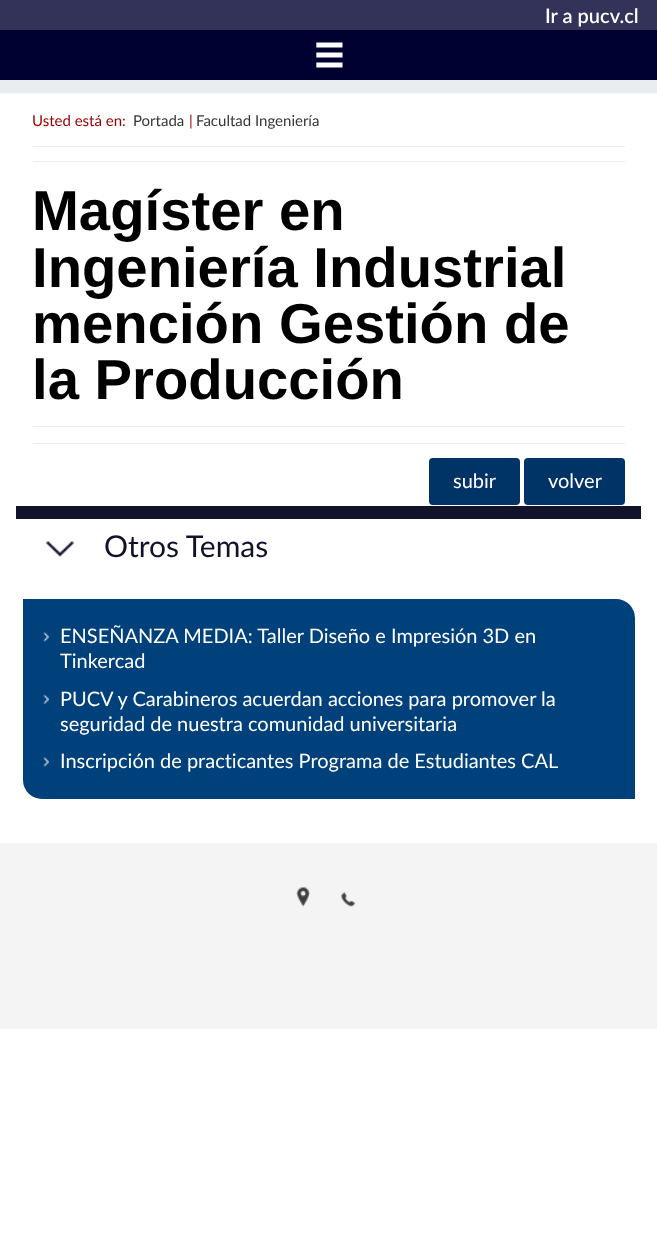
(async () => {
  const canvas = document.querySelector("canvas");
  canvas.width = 657;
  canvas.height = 1235;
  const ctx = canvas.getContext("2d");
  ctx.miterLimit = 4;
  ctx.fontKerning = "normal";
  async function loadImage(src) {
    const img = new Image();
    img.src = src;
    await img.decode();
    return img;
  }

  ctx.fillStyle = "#ffffff";
  ctx.fillRect(0, 0, 657, 1235);
  for (const [x, y, w, h, color] of [
    [0, 0, 657, 30, "#33335a"],
    [0, 80, 657, 13, "#eaedef"],
    [0, 30, 657, 50, "#000031"],
  ]) {
    ctx.fillStyle = color;
    ctx.fillRect(x, y, w, h);
  }
  ctx.drawImage(await loadImage("img/1.png"), 316, 42, 27, 26);
  for (const [x, y, w, h, color] of [
    [33, 146, 592, 1, "#ededed"],
    [33, 161, 592, 1, "#ededed"],
    [33, 426, 592, 1, "#ededed"],
    [33, 443, 592, 1, "#ededed"],
  ]) {
    ctx.fillStyle = color;
    ctx.fillRect(x, y, w, h);
  }
  ctx.fillStyle = "#003366";
  ctx.beginPath();
  ctx.roundRect(429, 458, 91, 47, 4);
  ctx.fill();
  ctx.beginPath();
  ctx.roundRect(524, 458, 101, 47, 4);
  ctx.fill();
  ctx.fillStyle = "#12132a";
  ctx.fillRect(16, 506, 625, 13);
  ctx.drawImage(await loadImage("img/2.png"), 46, 541, 28, 16);
  ctx.fillStyle = "#00417b";
  ctx.beginPath();
  ctx.roundRect(23, 599, 612, 200, [0, 19, 0, 19]);
  ctx.fill();
  ctx.drawImage(await loadImage("img/3.png"), 43, 632, 6, 10);
  ctx.drawImage(await loadImage("img/4.png"), 43, 694, 6, 10);
  ctx.drawImage(await loadImage("img/3.png"), 43, 757, 6, 10);
  ctx.fillStyle = "#f4f4f4";
  ctx.fillRect(0, 843, 657, 186);
  ctx.drawImage(await loadImage("img/5.png"), 296, 887, 15, 20);
  ctx.drawImage(await loadImage("img/6.png"), 341, 892, 15, 15);
  ctx.font = "600 20px Lato";
  ctx.fillStyle = "#ffffff";
  ctx.fillText("Ir a pucv.cl", 545, 23);
  ctx.font = "15px Lato";
  ctx.fillStyle = "#960000";
  ctx.fillText("Usted está en:", 32, 126);
  ctx.fillStyle = "#363636";
  ctx.fillText("Portada", 133, 126);
  ctx.fillStyle = "#960000";
  ctx.fillText("|", 189, 126);
  ctx.fillStyle = "#363636";
  ctx.fillText("Facultad Ingeniería", 196, 126);
  ctx.font = "bold 56.25px Liberation Sans";
  ctx.fillStyle = "#000000";
  for (const [text, x, y] of [
    ["Magíster en", 32, 230],
    ["Ingeniería Industrial", 32, 287],
    ["mención Gestión de", 32, 343],
    ["la Producción", 32, 399],
  ]) {
    ctx.fillText(text, x, y);
  }
  ctx.font = "20px Lato";
  ctx.fillStyle = "#ffffff";
  ctx.fillText("subir", 453, 488);
  ctx.fillText("volver", 548, 488);
  ctx.font = "30px Lato";
  ctx.fillStyle = "#12132a";
  ctx.fillText("Otros Temas", 104, 557);
  ctx.font = "20px Lato";
  ctx.fillStyle = "#ffffff";
  for (const [text, x, y] of [
    ["ENSEÑANZA MEDIA: Taller Diseño e Impresión 3D en", 60, 643],
    ["Tinkercad", 60, 668],
    ["PUCV y Carabineros acuerdan acciones para promover la", 60, 706],
    ["seguridad de nuestra comunidad universitaria", 60, 731],
    ["Inscripción de practicantes Programa de Estudiantes CAL", 60, 768],
  ]) {
    ctx.fillText(text, x, y);
  }
})();
